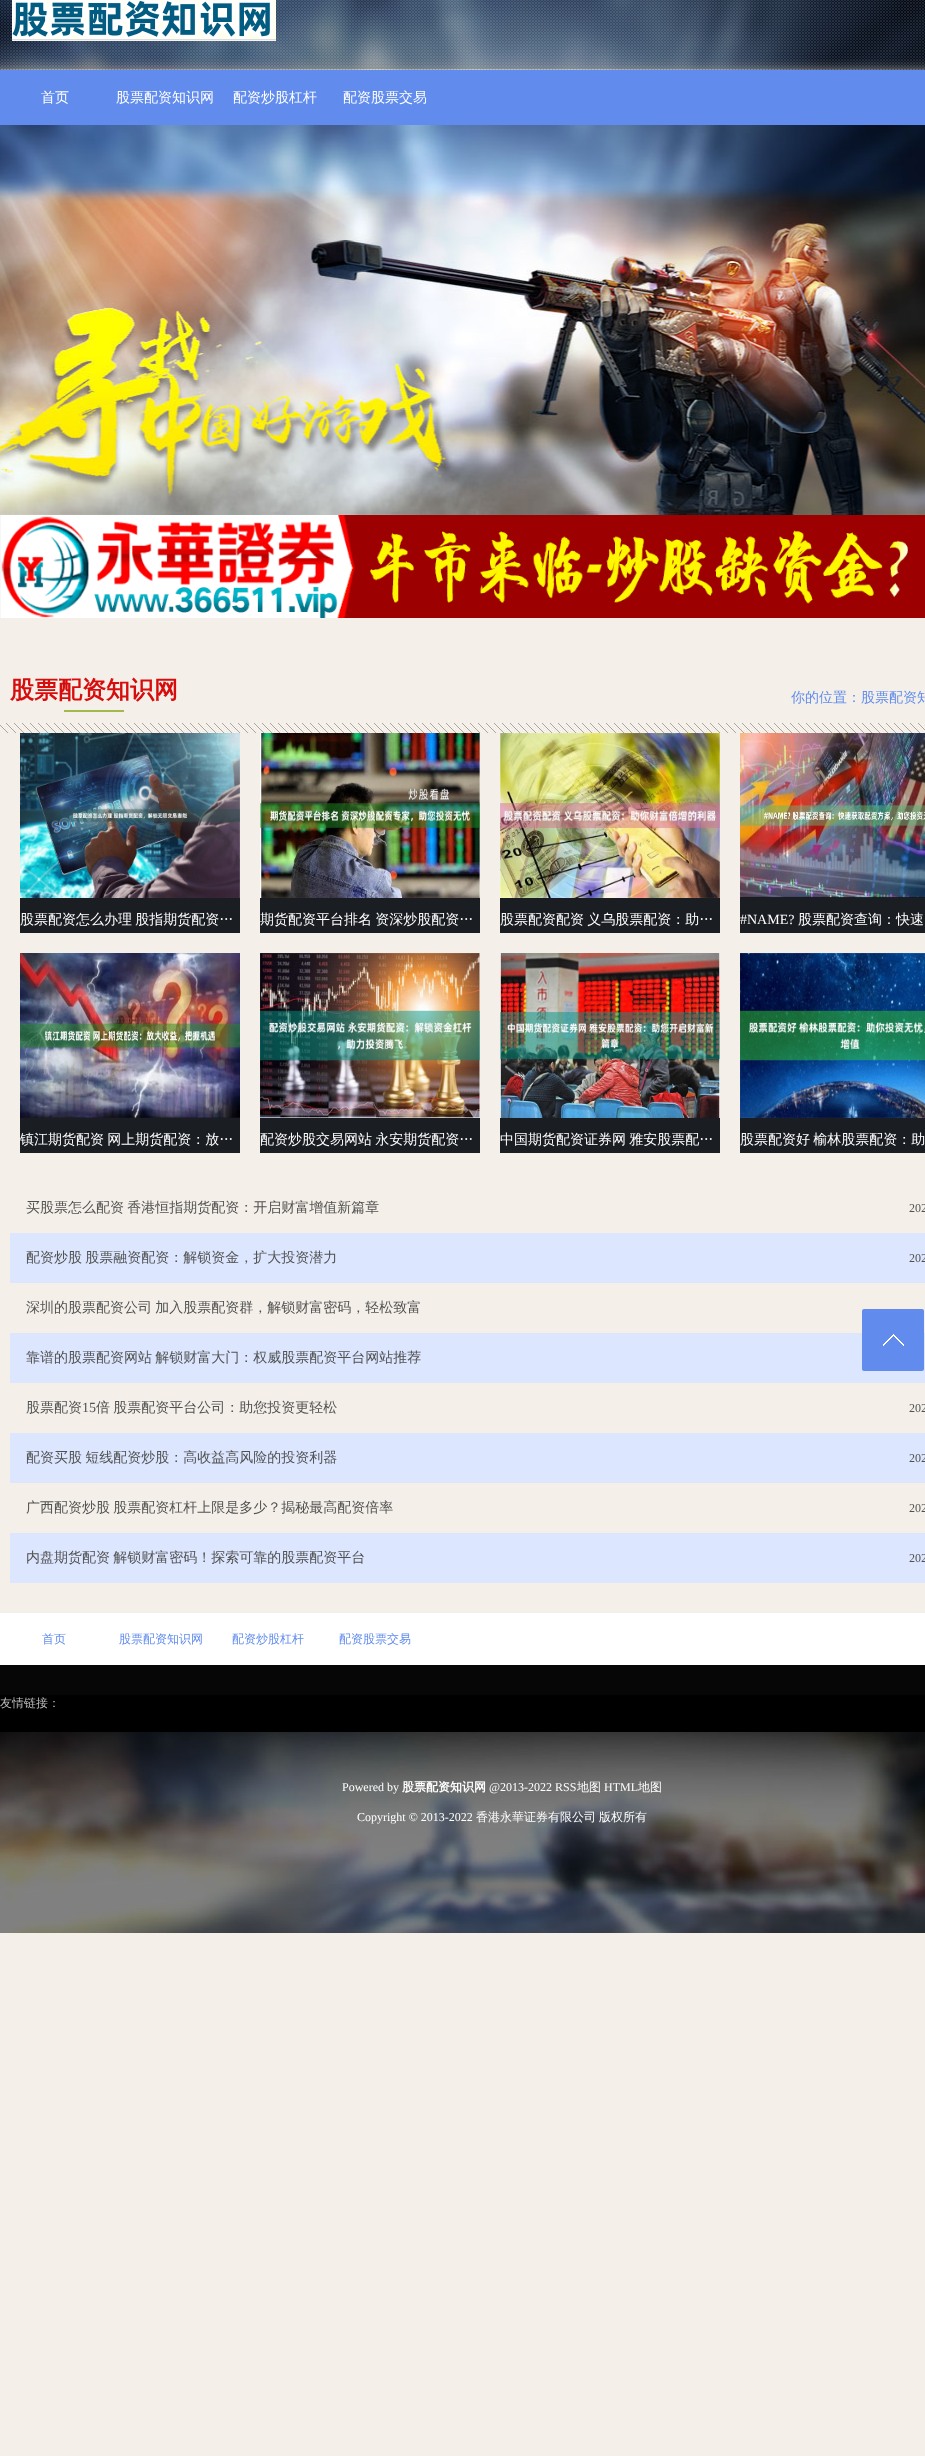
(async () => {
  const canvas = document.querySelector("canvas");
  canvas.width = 925;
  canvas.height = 2456;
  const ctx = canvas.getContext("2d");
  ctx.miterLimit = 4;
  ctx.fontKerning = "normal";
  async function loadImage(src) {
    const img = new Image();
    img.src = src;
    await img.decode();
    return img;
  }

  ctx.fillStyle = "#f4f0e9";
  ctx.fillRect(0, 0, 925, 2456);
  ctx.drawImage(await loadImage("img/1.png"), 0, 0, 925, 70);
  ctx.drawImage(await loadImage("img/2.png"), 12, 0, 264, 41);
  ctx.fillStyle = "#618ced";
  ctx.fillRect(0, 70, 925, 55);
  ctx.drawImage(await loadImage("img/3.png"), 0, 125, 925, 390);
  ctx.drawImage(await loadImage("img/4.png"), 0, 515, 925, 103);
  ctx.drawImage(await loadImage("img/5.png"), 0, 723, 925, 10);
  ctx.fillStyle = "#a1ba4b";
  ctx.fillRect(64, 710, 60, 2);
  ctx.fillStyle = "#1a1d22";
  ctx.fillRect(20, 898, 220, 35);
  ctx.drawImage(await loadImage("img/6.png"), 20, 733, 220, 165);
  ctx.fillRect(260, 898, 220, 35);
  ctx.drawImage(await loadImage("img/7.png"), 260, 733, 220, 165);
  ctx.fillRect(500, 898, 220, 35);
  ctx.drawImage(await loadImage("img/8.png"), 500, 733, 220, 165);
  ctx.fillRect(740, 898, 185, 35);
  ctx.drawImage(await loadImage("img/9.png"), 740, 733, 185, 165);
  ctx.fillRect(20, 1118, 220, 35);
  ctx.drawImage(await loadImage("img/10.png"), 20, 953, 220, 165);
  ctx.fillRect(260, 1118, 220, 35);
  ctx.drawImage(await loadImage("img/11.png"), 260, 953, 220, 165);
  ctx.fillRect(500, 1118, 220, 35);
  ctx.drawImage(await loadImage("img/12.png"), 500, 953, 220, 165);
  ctx.fillRect(740, 1118, 185, 35);
  ctx.drawImage(await loadImage("img/13.png"), 740, 953, 185, 165);
  for (const [x, y, w, h, color] of [
    [10, 1233, 915, 50, "#dce7ff"],
    [10, 1333, 915, 50, "#dce7ff"],
    [10, 1433, 915, 50, "#dce7ff"],
    [10, 1533, 915, 50, "#dce7ff"],
  ]) {
    ctx.fillStyle = color;
    ctx.fillRect(x, y, w, h);
  }
  ctx.fillStyle = "#618ced";
  ctx.beginPath();
  ctx.roundRect(862, 1309, 62, 62, 2);
  ctx.fill();
  ctx.drawImage(await loadImage("img/14.png"), 883, 1334, 21, 12);
  for (const [x, y, w, h, color] of [
    [0, 1613, 925, 52, "#ffffff"],
    [0, 1695, 925, 37, "#000000"],
    [0, 1665, 925, 30, "#060607"],
  ]) {
    ctx.fillStyle = color;
    ctx.fillRect(x, y, w, h);
  }
  ctx.drawImage(await loadImage("img/15.png"), 0, 1732, 925, 201);
  ctx.font = "500 14px WenQuanYi Zen Hei";
  ctx.fillStyle = "#ffffff";
  for (const [text, x, y] of [
    ["首页", 41, 102],
    ["股票配资知识网", 116, 102],
    ["配资炒股杠杆", 233, 102],
    ["配资股票交易", 343, 102],
  ]) {
    ctx.fillText(text, x, y);
  }
  ctx.font = "bold 24px WenQuanYi Zen Hei";
  ctx.fillStyle = "#d70c0c";
  ctx.fillText("股票配资知识网", 10, 698);
  ctx.font = "500 14px WenQuanYi Zen Hei";
  ctx.fillStyle = "#618ced";
  ctx.fillText("你的位置：股票配资知", 791, 702);
  ctx.wordSpacing = "-1px";
  ctx.fillStyle = "#ffffff";
  for (const [text, x, y] of [
    ["股票配资怎么办理 股指期货配资…", 20, 924],
    ["期货配资平台排名 资深炒股配资…", 260, 924],
    ["股票配资配资 义乌股票配资：助…", 500, 924],
  ]) {
    ctx.fillText(text, x, y);
  }
  ctx.wordSpacing = "0px";
  ctx.font = "14px Liberation Serif";
  ctx.fillText("#NAME?", 740, 924);
  ctx.font = "500 14px WenQuanYi Zen Hei";
  ctx.fillText("股票配资查询：快速", 798, 924);
  ctx.wordSpacing = "-1px";
  for (const [text, x, y] of [
    ["镇江期货配资 网上期货配资：放…", 20, 1144],
    ["配资炒股交易网站 永安期货配资…", 260, 1144],
    ["中国期货配资证券网 雅安股票配…", 500, 1144],
    ["股票配资好 榆林股票配资：助", 740, 1144],
  ]) {
    ctx.fillText(text, x, y);
  }
  ctx.fillStyle = "#515151";
  ctx.fillText("买股票怎么配资 香港恒指期货配资：开启财富增值新篇章", 26, 1212);
  ctx.wordSpacing = "0px";
  ctx.font = "12px Liberation Serif";
  ctx.fillText("202", 909, 1212);
  ctx.wordSpacing = "-1px";
  ctx.font = "500 14px WenQuanYi Zen Hei";
  ctx.fillText("配资炒股 股票融资配资：解锁资金，扩大投资潜力", 26, 1262);
  ctx.wordSpacing = "0px";
  ctx.font = "12px Liberation Serif";
  ctx.fillText("202", 909, 1262);
  ctx.wordSpacing = "-1px";
  ctx.font = "500 14px WenQuanYi Zen Hei";
  ctx.fillText("深圳的股票配资公司 加入股票配资群，解锁财富密码，轻松致富", 26, 1312);
  ctx.fillText("靠谱的股票配资网站 解锁财富大门：权威股票配资平台网站推荐", 26, 1362);
  ctx.wordSpacing = "0px";
  ctx.fillText("股票配资", 26, 1412);
  ctx.font = "14px Liberation Serif";
  ctx.fillText("15", 82, 1412);
  ctx.wordSpacing = "-1px";
  ctx.font = "500 14px WenQuanYi Zen Hei";
  ctx.fillText("倍 股票配资平台公司：助您投资更轻松", 96, 1412);
  ctx.wordSpacing = "0px";
  ctx.font = "12px Liberation Serif";
  ctx.fillText("202", 909, 1412);
  ctx.wordSpacing = "-1px";
  ctx.font = "500 14px WenQuanYi Zen Hei";
  ctx.fillText("配资买股 短线配资炒股：高收益高风险的投资利器", 26, 1462);
  ctx.wordSpacing = "0px";
  ctx.font = "12px Liberation Serif";
  ctx.fillText("202", 909, 1462);
  ctx.wordSpacing = "-1px";
  ctx.font = "500 14px WenQuanYi Zen Hei";
  ctx.fillText("广西配资炒股 股票配资杠杆上限是多少？揭秘最高配资倍率", 26, 1512);
  ctx.wordSpacing = "0px";
  ctx.font = "12px Liberation Serif";
  ctx.fillText("202", 909, 1512);
  ctx.wordSpacing = "-1px";
  ctx.font = "500 14px WenQuanYi Zen Hei";
  ctx.fillText("内盘期货配资 解锁财富密码！探索可靠的股票配资平台", 26, 1562);
  ctx.wordSpacing = "0px";
  ctx.font = "12px Liberation Serif";
  ctx.fillText("202", 909, 1562);
  ctx.font = "500 12px WenQuanYi Zen Hei";
  ctx.fillStyle = "#618ced";
  for (const [text, x, y] of [
    ["首页", 42, 1643],
    ["股票配资知识网", 119, 1643],
    ["配资炒股杠杆", 232, 1643],
    ["配资股票交易", 339, 1643],
  ]) {
    ctx.fillText(text, x, y);
  }
  ctx.fillStyle = "#bbbbbb";
  ctx.fillText("友情链接：", 0, 1707);
  ctx.font = "12px Liberation Serif";
  ctx.fillStyle = "#ffffff";
  ctx.fillText("Powered by", 342, 1791);
  ctx.font = "bold 12px WenQuanYi Zen Hei";
  ctx.fillText("股票配资知识网", 402, 1791);
  ctx.font = "12px Liberation Serif";
  ctx.fillText("@2013-2022 RSS", 489, 1791);
  ctx.font = "500 12px WenQuanYi Zen Hei";
  ctx.fillText("地图", 577, 1791);
  ctx.font = "12px Liberation Serif";
  ctx.fillText("HTML", 604, 1791);
  ctx.font = "500 12px WenQuanYi Zen Hei";
  ctx.fillText("地图", 638, 1791);
  ctx.font = "12px Liberation Serif";
  ctx.fillText("Copyright © 2013-2022", 357, 1821);
  ctx.font = "500 12px WenQuanYi Zen Hei";
  ctx.fillText("香港永華证券有限公司", 476, 1821);
  ctx.fillText("版权所有", 599, 1821);
})();
